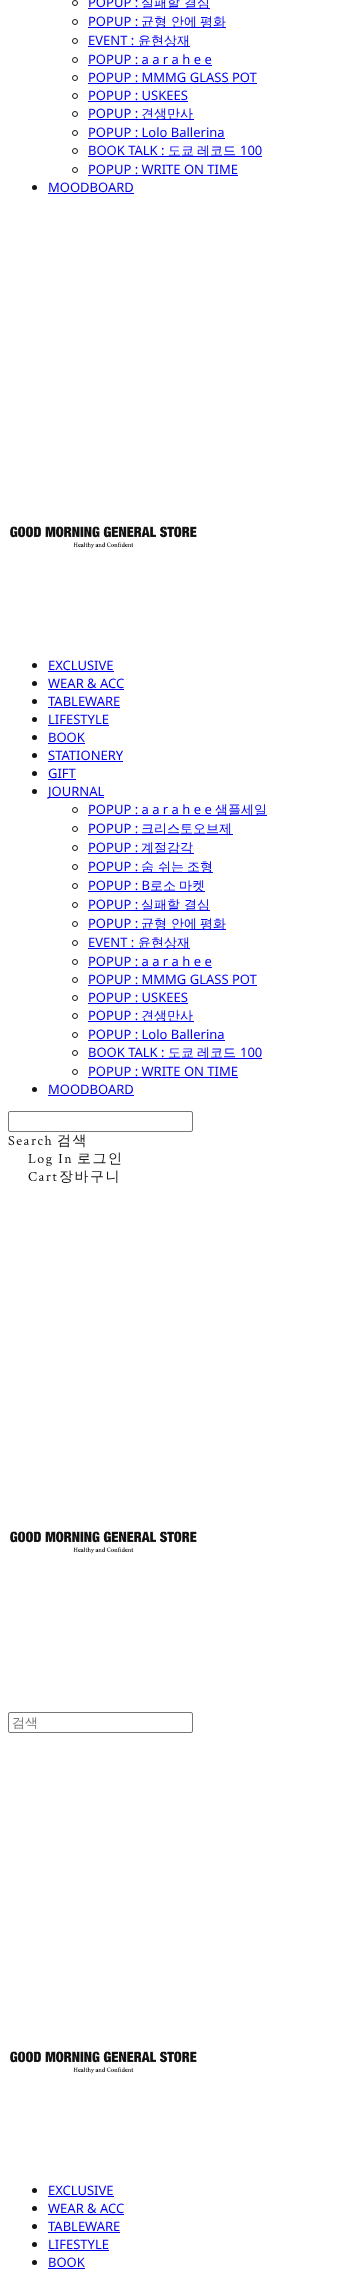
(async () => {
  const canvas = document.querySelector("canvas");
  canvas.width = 347;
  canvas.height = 2274;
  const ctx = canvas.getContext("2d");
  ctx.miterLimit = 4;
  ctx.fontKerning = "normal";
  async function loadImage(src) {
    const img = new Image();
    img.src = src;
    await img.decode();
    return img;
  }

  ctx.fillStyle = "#ffffff";
  ctx.fillRect(0, 0, 347, 2274);
  ctx.beginPath();
  ctx.arc(75, 3, 2.5, 0, Math.PI * 2);
  ctx.strokeStyle = "#141414";
  ctx.stroke();
  ctx.fillStyle = "#0000ee";
  ctx.fillRect(88, 8, 122, 1);
  ctx.beginPath();
  ctx.arc(75, 22, 2.5, 0, Math.PI * 2);
  ctx.stroke();
  ctx.fillRect(88, 27, 138, 1);
  ctx.beginPath();
  ctx.arc(75, 41, 2.5, 0, Math.PI * 2);
  ctx.stroke();
  ctx.fillRect(88, 46, 102, 1);
  ctx.beginPath();
  ctx.arc(75, 60, 2.5, 0, Math.PI * 2);
  ctx.stroke();
  ctx.fillRect(88, 65, 124, 1);
  ctx.beginPath();
  ctx.arc(75, 78, 2.5, 0, Math.PI * 2);
  ctx.stroke();
  ctx.fillRect(88, 83, 169, 1);
  ctx.beginPath();
  ctx.arc(75, 96, 2.5, 0, Math.PI * 2);
  ctx.stroke();
  ctx.fillRect(88, 101, 100, 1);
  ctx.beginPath();
  ctx.arc(75, 114, 2.5, 0, Math.PI * 2);
  ctx.stroke();
  ctx.fillRect(88, 119, 106, 1);
  ctx.beginPath();
  ctx.arc(75, 133, 2.5, 0, Math.PI * 2);
  ctx.stroke();
  ctx.fillRect(88, 138, 137, 1);
  ctx.beginPath();
  ctx.arc(75, 151, 2.5, 0, Math.PI * 2);
  ctx.stroke();
  ctx.fillRect(88, 156, 174, 1);
  ctx.beginPath();
  ctx.arc(75, 170, 2.5, 0, Math.PI * 2);
  ctx.stroke();
  ctx.fillRect(88, 175, 150, 1);
  ctx.fillStyle = "#141414";
  ctx.beginPath();
  ctx.arc(34.5, 187.5, 2.5, 0, Math.PI * 2);
  ctx.fill();
  ctx.fillStyle = "#0000ee";
  ctx.fillRect(48, 193, 86, 1);
  ctx.drawImage(await loadImage("img/1.png"), 10, 526, 187, 23);
  ctx.fillStyle = "#141414";
  ctx.beginPath();
  ctx.arc(34.5, 665.5, 2.5, 0, Math.PI * 2);
  ctx.fill();
  ctx.fillStyle = "#0000ee";
  ctx.fillRect(48, 671, 66, 1);
  ctx.fillStyle = "#141414";
  ctx.beginPath();
  ctx.arc(34.5, 683.5, 2.5, 0, Math.PI * 2);
  ctx.fill();
  ctx.fillStyle = "#0000ee";
  ctx.fillRect(48, 689, 76, 1);
  ctx.fillStyle = "#141414";
  ctx.beginPath();
  ctx.arc(34.5, 701.5, 2.5, 0, Math.PI * 2);
  ctx.fill();
  ctx.fillStyle = "#0000ee";
  ctx.fillRect(48, 707, 72, 1);
  ctx.fillStyle = "#141414";
  ctx.beginPath();
  ctx.arc(34.5, 719.5, 2.5, 0, Math.PI * 2);
  ctx.fill();
  ctx.fillStyle = "#0000ee";
  ctx.fillRect(48, 725, 61, 1);
  ctx.fillStyle = "#141414";
  ctx.beginPath();
  ctx.arc(34.5, 737.5, 2.5, 0, Math.PI * 2);
  ctx.fill();
  ctx.fillStyle = "#0000ee";
  ctx.fillRect(48, 743, 37, 1);
  ctx.fillStyle = "#141414";
  ctx.beginPath();
  ctx.arc(34.5, 755.5, 2.5, 0, Math.PI * 2);
  ctx.fill();
  ctx.fillStyle = "#0000ee";
  ctx.fillRect(48, 761, 75, 1);
  ctx.fillStyle = "#141414";
  ctx.beginPath();
  ctx.arc(34.5, 773.5, 2.5, 0, Math.PI * 2);
  ctx.fill();
  ctx.fillStyle = "#0000ee";
  ctx.fillRect(48, 779, 28, 1);
  ctx.fillStyle = "#141414";
  ctx.beginPath();
  ctx.arc(34.5, 791.5, 2.5, 0, Math.PI * 2);
  ctx.fill();
  ctx.fillStyle = "#0000ee";
  ctx.fillRect(48, 797, 56, 1);
  ctx.beginPath();
  ctx.arc(75, 810, 2.5, 0, Math.PI * 2);
  ctx.stroke();
  ctx.fillRect(88, 815, 179, 1);
  ctx.beginPath();
  ctx.arc(75, 829, 2.5, 0, Math.PI * 2);
  ctx.stroke();
  ctx.fillRect(88, 834, 145, 1);
  ctx.beginPath();
  ctx.arc(75, 848, 2.5, 0, Math.PI * 2);
  ctx.stroke();
  ctx.fillRect(88, 853, 106, 1);
  ctx.beginPath();
  ctx.arc(75, 867, 2.5, 0, Math.PI * 2);
  ctx.stroke();
  ctx.fillRect(88, 872, 125, 1);
  ctx.beginPath();
  ctx.arc(75, 886, 2.5, 0, Math.PI * 2);
  ctx.stroke();
  ctx.fillRect(88, 891, 117, 1);
  ctx.beginPath();
  ctx.arc(75, 905, 2.5, 0, Math.PI * 2);
  ctx.stroke();
  ctx.fillRect(88, 910, 122, 1);
  ctx.beginPath();
  ctx.arc(75, 924, 2.5, 0, Math.PI * 2);
  ctx.stroke();
  ctx.fillRect(88, 929, 138, 1);
  ctx.beginPath();
  ctx.arc(75, 943, 2.5, 0, Math.PI * 2);
  ctx.stroke();
  ctx.fillRect(88, 948, 102, 1);
  ctx.beginPath();
  ctx.arc(75, 962, 2.5, 0, Math.PI * 2);
  ctx.stroke();
  ctx.fillRect(88, 967, 124, 1);
  ctx.beginPath();
  ctx.arc(75, 980, 2.5, 0, Math.PI * 2);
  ctx.stroke();
  ctx.fillRect(88, 985, 169, 1);
  ctx.beginPath();
  ctx.arc(75, 998, 2.5, 0, Math.PI * 2);
  ctx.stroke();
  ctx.fillRect(88, 1003, 100, 1);
  ctx.beginPath();
  ctx.arc(75, 1016, 2.5, 0, Math.PI * 2);
  ctx.stroke();
  ctx.fillRect(88, 1021, 106, 1);
  ctx.beginPath();
  ctx.arc(75, 1035, 2.5, 0, Math.PI * 2);
  ctx.stroke();
  ctx.fillRect(88, 1040, 137, 1);
  ctx.beginPath();
  ctx.arc(75, 1053, 2.5, 0, Math.PI * 2);
  ctx.stroke();
  ctx.fillRect(88, 1058, 174, 1);
  ctx.beginPath();
  ctx.arc(75, 1072, 2.5, 0, Math.PI * 2);
  ctx.stroke();
  ctx.fillRect(88, 1077, 150, 1);
  ctx.fillStyle = "#141414";
  ctx.beginPath();
  ctx.arc(34.5, 1089.5, 2.5, 0, Math.PI * 2);
  ctx.fill();
  ctx.fillStyle = "#0000ee";
  ctx.fillRect(48, 1095, 86, 1);
  ctx.beginPath();
  ctx.roundRect(8.5, 1111.5, 184, 20, 1.5);
  ctx.strokeStyle = "#767676";
  ctx.stroke();
  ctx.drawImage(await loadImage("img/1.png"), 10, 1531, 187, 23);
  ctx.beginPath();
  ctx.roundRect(8.5, 1712.5, 184, 20, 1.5);
  ctx.stroke();
  ctx.drawImage(await loadImage("img/1.png"), 10, 2051, 187, 23);
  ctx.fillStyle = "#141414";
  ctx.beginPath();
  ctx.arc(34.5, 2190.5, 2.5, 0, Math.PI * 2);
  ctx.fill();
  ctx.fillStyle = "#0000ee";
  ctx.fillRect(48, 2196, 66, 1);
  ctx.fillStyle = "#141414";
  ctx.beginPath();
  ctx.arc(34.5, 2208.5, 2.5, 0, Math.PI * 2);
  ctx.fill();
  ctx.fillStyle = "#0000ee";
  ctx.fillRect(48, 2214, 76, 1);
  ctx.fillStyle = "#141414";
  ctx.beginPath();
  ctx.arc(34.5, 2226.5, 2.5, 0, Math.PI * 2);
  ctx.fill();
  ctx.fillStyle = "#0000ee";
  ctx.fillRect(48, 2232, 72, 1);
  ctx.fillStyle = "#141414";
  ctx.beginPath();
  ctx.arc(34.5, 2244.5, 2.5, 0, Math.PI * 2);
  ctx.fill();
  ctx.fillStyle = "#0000ee";
  ctx.fillRect(48, 2250, 61, 1);
  ctx.fillStyle = "#141414";
  ctx.beginPath();
  ctx.arc(34.5, 2262.5, 2.5, 0, Math.PI * 2);
  ctx.fill();
  ctx.fillStyle = "#0000ee";
  ctx.fillRect(48, 2268, 37, 1);
  ctx.font = "13px Noto Sans";
  ctx.fillText("POPUP :", 88, 7);
  ctx.font = "500 13px WenQuanYi Zen Hei";
  ctx.fillText("실패할", 141, 7);
  ctx.fillText("결심", 184, 7);
  ctx.font = "13px Noto Sans";
  ctx.fillText("POPUP :", 88, 26);
  ctx.font = "500 13px WenQuanYi Zen Hei";
  for (const [text, x, y] of [
    ["균형", 141, 26],
    ["안에", 171, 26],
    ["평화", 200, 26],
  ]) {
    ctx.fillText(text, x, y);
  }
  ctx.font = "13px Noto Sans";
  ctx.fillText("EVENT :", 88, 45);
  ctx.font = "500 13px WenQuanYi Zen Hei";
  ctx.fillText("윤현상재", 138, 45);
  ctx.font = "13px Noto Sans";
  for (const [text, x, y] of [
    ["POPUP : a a r a h e e", 88, 64],
    ["POPUP : MMMG GLASS POT", 88, 82],
    ["POPUP : USKEES", 88, 100],
    ["POPUP :", 88, 118],
  ]) {
    ctx.fillText(text, x, y);
  }
  ctx.font = "500 13px WenQuanYi Zen Hei";
  ctx.fillText("견생만사", 141, 118);
  ctx.font = "13px Noto Sans";
  ctx.fillText("POPUP : Lolo Ballerina", 88, 137);
  ctx.fillText("BOOK TALK :", 88, 155);
  ctx.font = "500 13px WenQuanYi Zen Hei";
  ctx.fillText("도쿄", 168, 155);
  ctx.fillText("레코드", 197, 155);
  ctx.font = "13px Noto Sans";
  for (const [text, x, y] of [
    ["100", 240, 155],
    ["POPUP : WRITE ON TIME", 88, 174],
    ["MOODBOARD", 48, 192],
    ["EXCLUSIVE", 48, 670],
    ["WEAR & ACC", 48, 688],
    ["TABLEWARE", 48, 706],
    ["LIFESTYLE", 48, 724],
    ["BOOK", 48, 742],
    ["STATIONERY", 48, 760],
    ["GIFT", 48, 778],
    ["JOURNAL", 48, 796],
    ["POPUP : a a r a h e e", 88, 814],
  ]) {
    ctx.fillText(text, x, y);
  }
  ctx.font = "500 13px WenQuanYi Zen Hei";
  ctx.fillText("샘플세일", 215, 814);
  ctx.font = "13px Noto Sans";
  ctx.fillText("POPUP :", 88, 833);
  ctx.font = "500 13px WenQuanYi Zen Hei";
  ctx.fillText("크리스토오브제", 141, 833);
  ctx.font = "13px Noto Sans";
  ctx.fillText("POPUP :", 88, 852);
  ctx.font = "500 13px WenQuanYi Zen Hei";
  ctx.fillText("계절감각", 141, 852);
  ctx.font = "13px Noto Sans";
  ctx.fillText("POPUP :", 88, 871);
  ctx.font = "500 13px WenQuanYi Zen Hei";
  for (const [text, x, y] of [
    ["숨", 141, 871],
    ["쉬는", 158, 871],
    ["조형", 187, 871],
  ]) {
    ctx.fillText(text, x, y);
  }
  ctx.font = "13px Noto Sans";
  ctx.fillText("POPUP : B", 88, 890);
  ctx.font = "500 13px WenQuanYi Zen Hei";
  ctx.fillText("로소", 150, 890);
  ctx.fillText("마켓", 179, 890);
  ctx.font = "13px Noto Sans";
  ctx.fillText("POPUP :", 88, 909);
  ctx.font = "500 13px WenQuanYi Zen Hei";
  ctx.fillText("실패할", 141, 909);
  ctx.fillText("결심", 184, 909);
  ctx.font = "13px Noto Sans";
  ctx.fillText("POPUP :", 88, 928);
  ctx.font = "500 13px WenQuanYi Zen Hei";
  for (const [text, x, y] of [
    ["균형", 141, 928],
    ["안에", 171, 928],
    ["평화", 200, 928],
  ]) {
    ctx.fillText(text, x, y);
  }
  ctx.font = "13px Noto Sans";
  ctx.fillText("EVENT :", 88, 947);
  ctx.font = "500 13px WenQuanYi Zen Hei";
  ctx.fillText("윤현상재", 138, 947);
  ctx.font = "13px Noto Sans";
  for (const [text, x, y] of [
    ["POPUP : a a r a h e e", 88, 966],
    ["POPUP : MMMG GLASS POT", 88, 984],
    ["POPUP : USKEES", 88, 1002],
    ["POPUP :", 88, 1020],
  ]) {
    ctx.fillText(text, x, y);
  }
  ctx.font = "500 13px WenQuanYi Zen Hei";
  ctx.fillText("견생만사", 141, 1020);
  ctx.font = "13px Noto Sans";
  ctx.fillText("POPUP : Lolo Ballerina", 88, 1039);
  ctx.fillText("BOOK TALK :", 88, 1057);
  ctx.font = "500 13px WenQuanYi Zen Hei";
  ctx.fillText("도쿄", 168, 1057);
  ctx.fillText("레코드", 197, 1057);
  ctx.font = "13px Noto Sans";
  for (const [text, x, y] of [
    ["100", 240, 1057],
    ["POPUP : WRITE ON TIME", 88, 1076],
    ["MOODBOARD", 48, 1094],
  ]) {
    ctx.fillText(text, x, y);
  }
  ctx.letterSpacing = "1.5px";
  ctx.font = "14px Crimson Text";
  ctx.fillStyle = "#141414";
  ctx.fillText("Search", 8, 1145);
  ctx.font = "500 14px WenQuanYi Zen Hei";
  ctx.fillText("검색", 57, 1145);
  ctx.font = "14px Crimson Text";
  ctx.fillText("Log In", 28, 1163);
  ctx.font = "500 14px WenQuanYi Zen Hei";
  ctx.fillText("로그인", 77, 1163);
  ctx.font = "14px Crimson Text";
  ctx.fillText("Cart", 28, 1181);
  ctx.font = "500 14px WenQuanYi Zen Hei";
  ctx.fillText("장바구니", 59, 1181);
  ctx.letterSpacing = "0px";
  ctx.font = "500 13px WenQuanYi Zen Hei";
  ctx.fillStyle = "#757575";
  ctx.fillText("검색", 12, 1727);
  ctx.font = "13px Noto Sans";
  ctx.fillStyle = "#0000ee";
  for (const [text, x, y] of [
    ["EXCLUSIVE", 48, 2195],
    ["WEAR & ACC", 48, 2213],
    ["TABLEWARE", 48, 2231],
    ["LIFESTYLE", 48, 2249],
    ["BOOK", 48, 2267],
  ]) {
    ctx.fillText(text, x, y);
  }
})();
